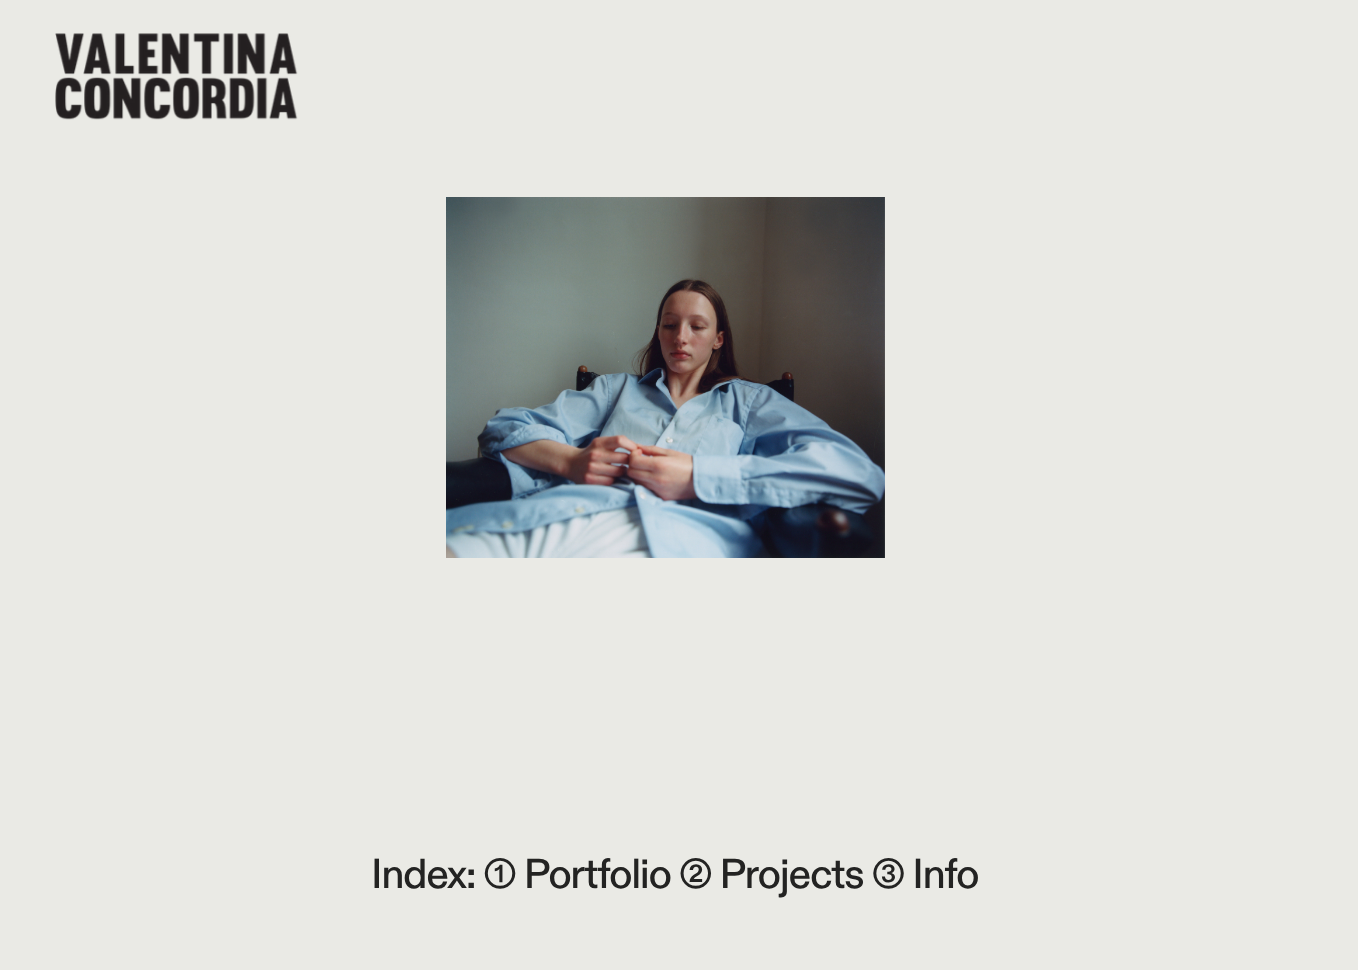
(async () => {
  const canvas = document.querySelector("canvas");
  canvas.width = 1358;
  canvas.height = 970;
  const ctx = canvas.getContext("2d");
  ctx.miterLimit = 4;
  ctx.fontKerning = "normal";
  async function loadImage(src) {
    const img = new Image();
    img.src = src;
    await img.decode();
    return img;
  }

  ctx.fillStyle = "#eaeae5";
  ctx.fillRect(0, 0, 1358, 970);
  ctx.drawImage(await loadImage("img/1.png"), 55, 33, 243, 87);
  ctx.drawImage(await loadImage("img/2.png"), 446, 197, 439, 361);
  ctx.letterSpacing = "-1.4px";
  ctx.font = "500 41.9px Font";
  ctx.fillStyle = "#232322";
  ctx.fillText("Index: ① Portfolio ② Projects ③ Info", 371, 888);
})();
